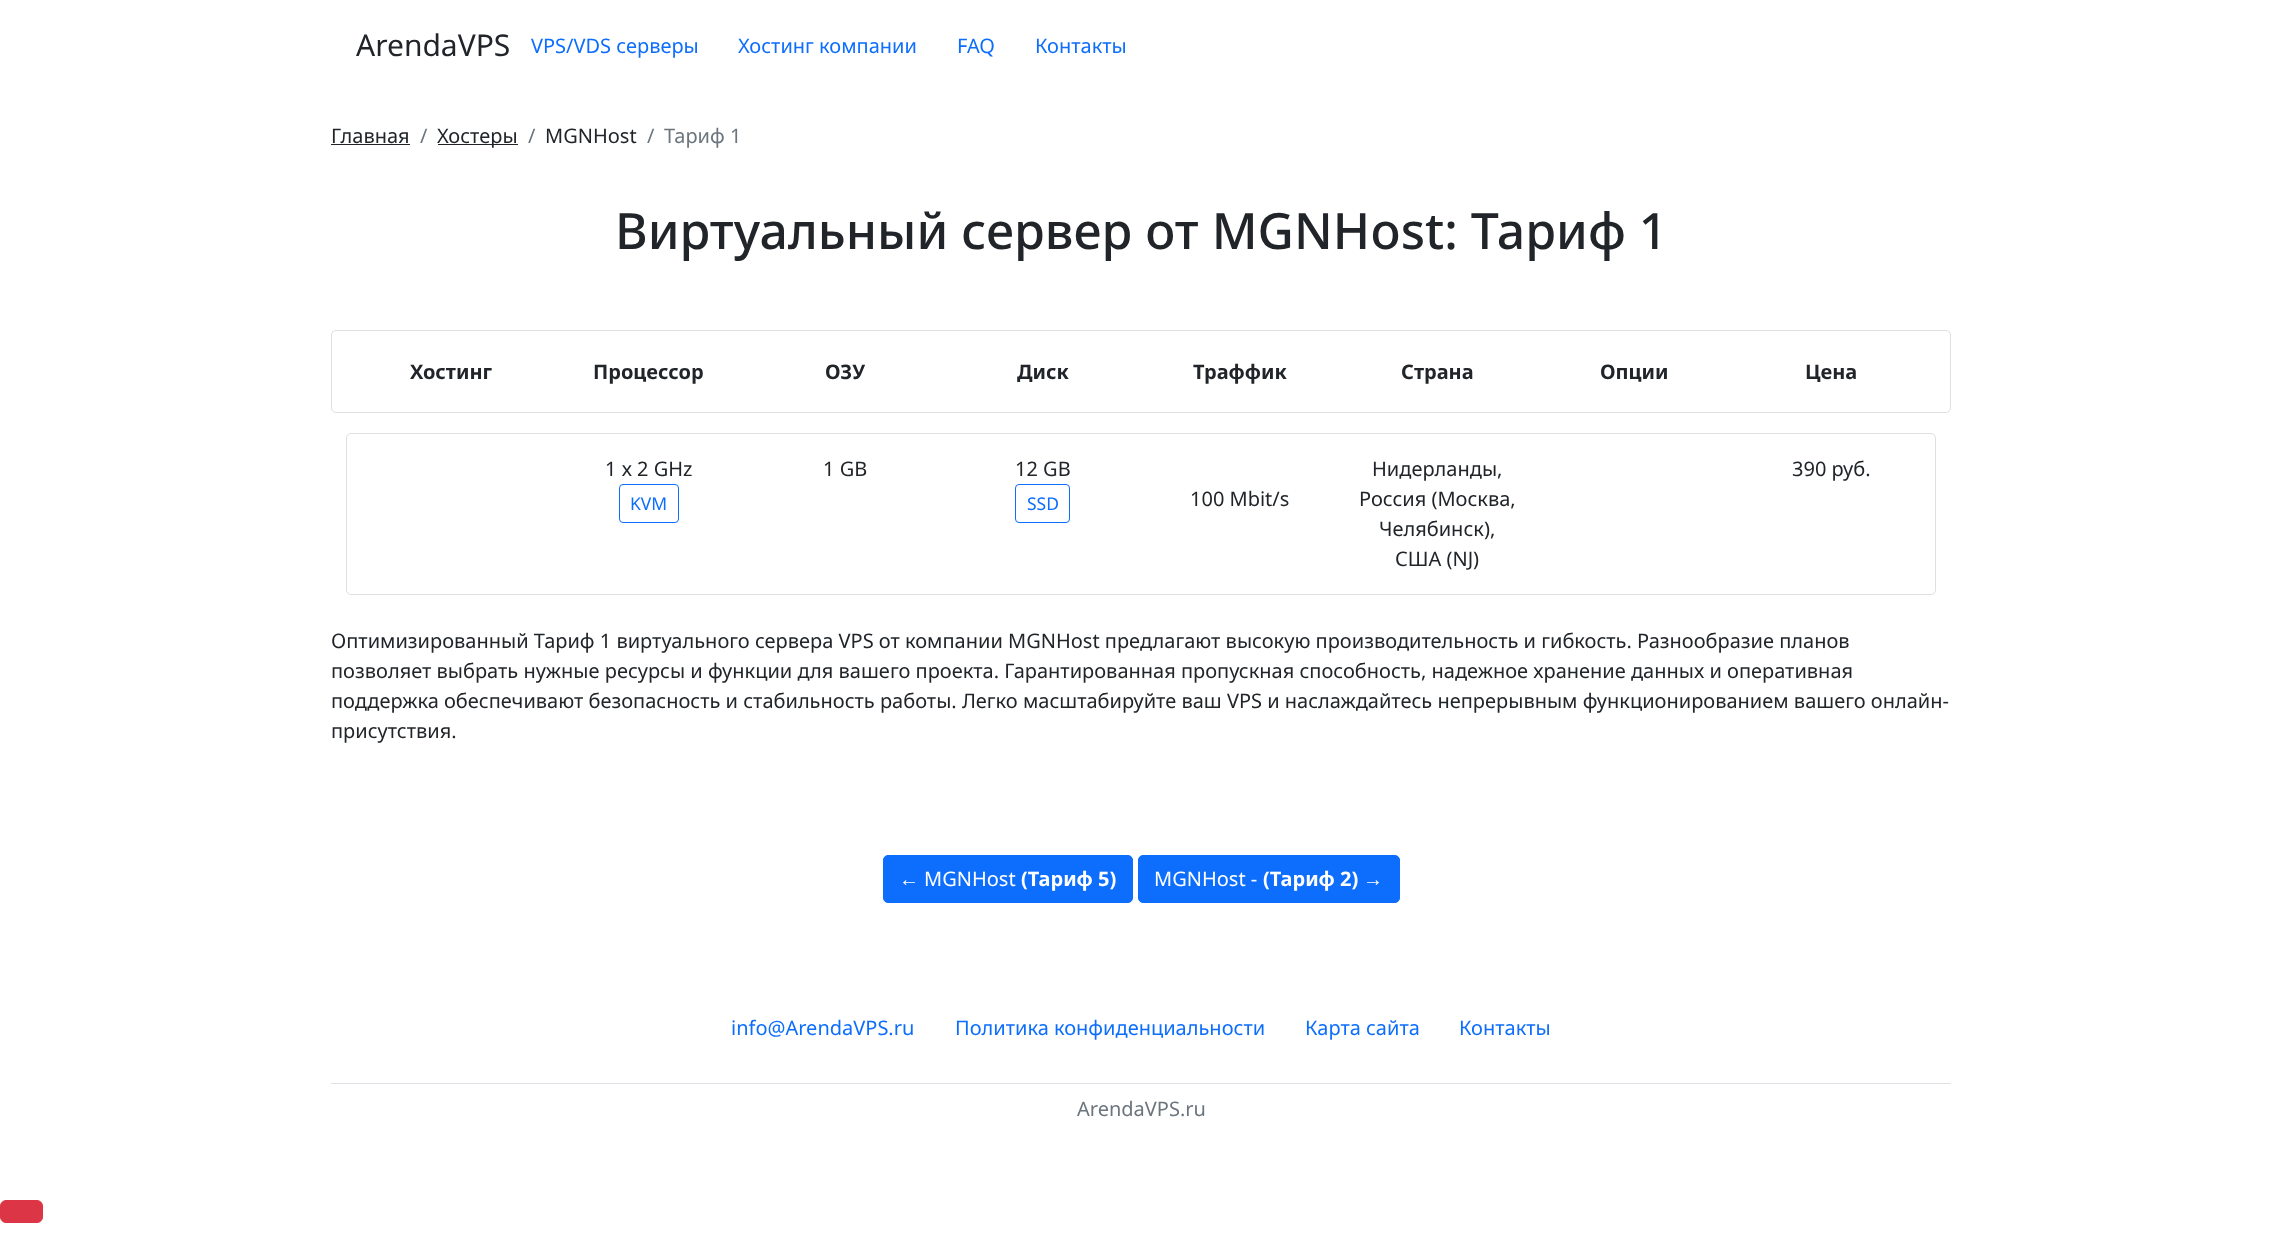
(async () => {
  const canvas = document.querySelector("canvas");
  canvas.width = 2282;
  canvas.height = 1257;
  const ctx = canvas.getContext("2d");
  ctx.miterLimit = 4;
  ctx.fontKerning = "normal";

  ctx.fillStyle = "#ffffff";
  ctx.fillRect(0, 0, 2282, 1257);
  ctx.fillStyle = "#212529";
  ctx.fillRect(331, 144, 79, 1);
  ctx.fillRect(438, 144, 80, 1);
  ctx.beginPath();
  ctx.roundRect(331.5, 330.5, 1619, 82, 4.5);
  ctx.strokeStyle = "#dfdfdf";
  ctx.stroke();
  ctx.beginPath();
  ctx.roundRect(346.5, 433.5, 1589, 161, 4.5);
  ctx.stroke();
  ctx.beginPath();
  ctx.roundRect(619.5, 484.5, 59, 38, 3.5);
  ctx.strokeStyle = "#0d6efd";
  ctx.stroke();
  ctx.beginPath();
  ctx.roundRect(1015.5, 484.5, 54, 38, 3.5);
  ctx.stroke();
  ctx.fillStyle = "#0d6efd";
  ctx.beginPath();
  ctx.roundRect(883.5, 855.5, 249, 47, 4.5);
  ctx.fill();
  ctx.stroke();
  ctx.beginPath();
  ctx.roundRect(1138.5, 855.5, 261, 47, 4.5);
  ctx.fill();
  ctx.stroke();
  ctx.fillStyle = "#dee2e6";
  ctx.fillRect(331, 1083, 1620, 1);
  ctx.fillStyle = "#dc3545";
  ctx.beginPath();
  ctx.roundRect(0.5, 1200.5, 42, 22, 5.5);
  ctx.fill();
  ctx.strokeStyle = "#dc3545";
  ctx.stroke();
  ctx.font = "30px Noto Sans";
  ctx.fillStyle = "#212529";
  ctx.fillText("ArendaVPS", 356, 56);
  ctx.font = "20px Noto Sans";
  ctx.fillStyle = "#0d6efd";
  for (const [text, x, y] of [
    ["VPS/VDS серверы", 531, 53],
    ["Хостинг компании", 738, 53],
    ["FAQ", 957, 53],
    ["Контакты", 1035, 53],
  ]) {
    ctx.fillText(text, x, y);
  }
  ctx.fillStyle = "#212529";
  ctx.fillText("Главная", 331, 143);
  ctx.fillStyle = "#6c757d";
  ctx.fillText("/", 420, 143);
  ctx.fillStyle = "#212529";
  ctx.fillText("Хостеры", 437, 143);
  ctx.fillStyle = "#6c757d";
  ctx.fillText("/", 528, 143);
  ctx.fillStyle = "#212529";
  ctx.fillText("MGNHost", 545, 143);
  ctx.fillStyle = "#6c757d";
  ctx.fillText("/", 647, 143);
  ctx.fillText("Тариф 1", 664, 143);
  ctx.font = "500 50px Noto Sans";
  ctx.fillStyle = "#212529";
  ctx.fillText("Виртуальный сервер от MGNHost: Тариф 1", 615, 249);
  ctx.font = "bold 20px Noto Sans";
  for (const [text, x, y] of [
    ["Хостинг", 410, 379],
    ["Процессор", 593, 379],
    ["ОЗУ", 825, 379],
    ["Диск", 1017, 379],
    ["Траффик", 1193, 379],
    ["Страна", 1401, 379],
    ["Опции", 1600, 379],
    ["Цена", 1805, 379],
  ]) {
    ctx.fillText(text, x, y);
  }
  ctx.font = "20px Noto Sans";
  ctx.fillText("1 х 2 GHz", 605, 476);
  ctx.font = "17.5px Noto Sans";
  ctx.fillStyle = "#0d6efd";
  ctx.fillText("KVM", 630, 510);
  ctx.font = "20px Noto Sans";
  ctx.fillStyle = "#212529";
  ctx.fillText("1 GB", 823, 476);
  ctx.fillText("12 GB", 1015, 476);
  ctx.font = "17.5px Noto Sans";
  ctx.fillStyle = "#0d6efd";
  ctx.fillText("SSD", 1027, 510);
  ctx.font = "20px Noto Sans";
  ctx.fillStyle = "#212529";
  for (const [text, x, y] of [
    ["100 Mbit/s", 1190, 506],
    ["Нидерланды,", 1372, 476],
    ["Россия (Москва,", 1359, 506],
    ["Челябинск),", 1379, 536],
    ["США (NJ)", 1395, 566],
    ["390 руб.", 1792, 476],
    ["Оптимизированный Тариф 1 виртуального сервера VPS от компании MGNHost предлагают высокую производительность и гибкость. Разнообразие планов", 331, 648],
    ["позволяет выбрать нужные ресурсы и функции для вашего проекта. Гарантированная пропускная способность, надежное хранение данных и оперативная", 331, 678],
    ["поддержка обеспечивают безопасность и стабильность работы. Легко масштабируйте ваш VPS и наслаждайтесь непрерывным функционированием вашего онлайн-", 331, 708],
    ["присутствия.", 331, 738],
  ]) {
    ctx.fillText(text, x, y);
  }
  ctx.font = "20px Liberation Sans";
  ctx.fillStyle = "#ffffff";
  ctx.fillText("←", 899, 886);
  ctx.font = "20px Noto Sans";
  ctx.fillText("MGNHost", 924, 886);
  ctx.font = "bold 20px Noto Sans";
  ctx.fillText("(Тариф 5)", 1021, 886);
  ctx.font = "20px Noto Sans";
  ctx.fillText("MGNHost -", 1154, 886);
  ctx.font = "bold 20px Noto Sans";
  ctx.fillText("(Тариф 2)", 1263, 886);
  ctx.font = "20px Liberation Sans";
  ctx.fillText("→", 1363, 886);
  ctx.font = "20px Noto Sans";
  ctx.fillStyle = "#0d6efd";
  for (const [text, x, y] of [
    ["info@ArendaVPS.ru", 731, 1035],
    ["Политика конфиденциальности", 955, 1035],
    ["Карта сайта", 1305, 1035],
    ["Контакты", 1459, 1035],
  ]) {
    ctx.fillText(text, x, y);
  }
  ctx.fillStyle = "#6c757d";
  ctx.fillText("ArendaVPS.ru", 1077, 1116);
})();
